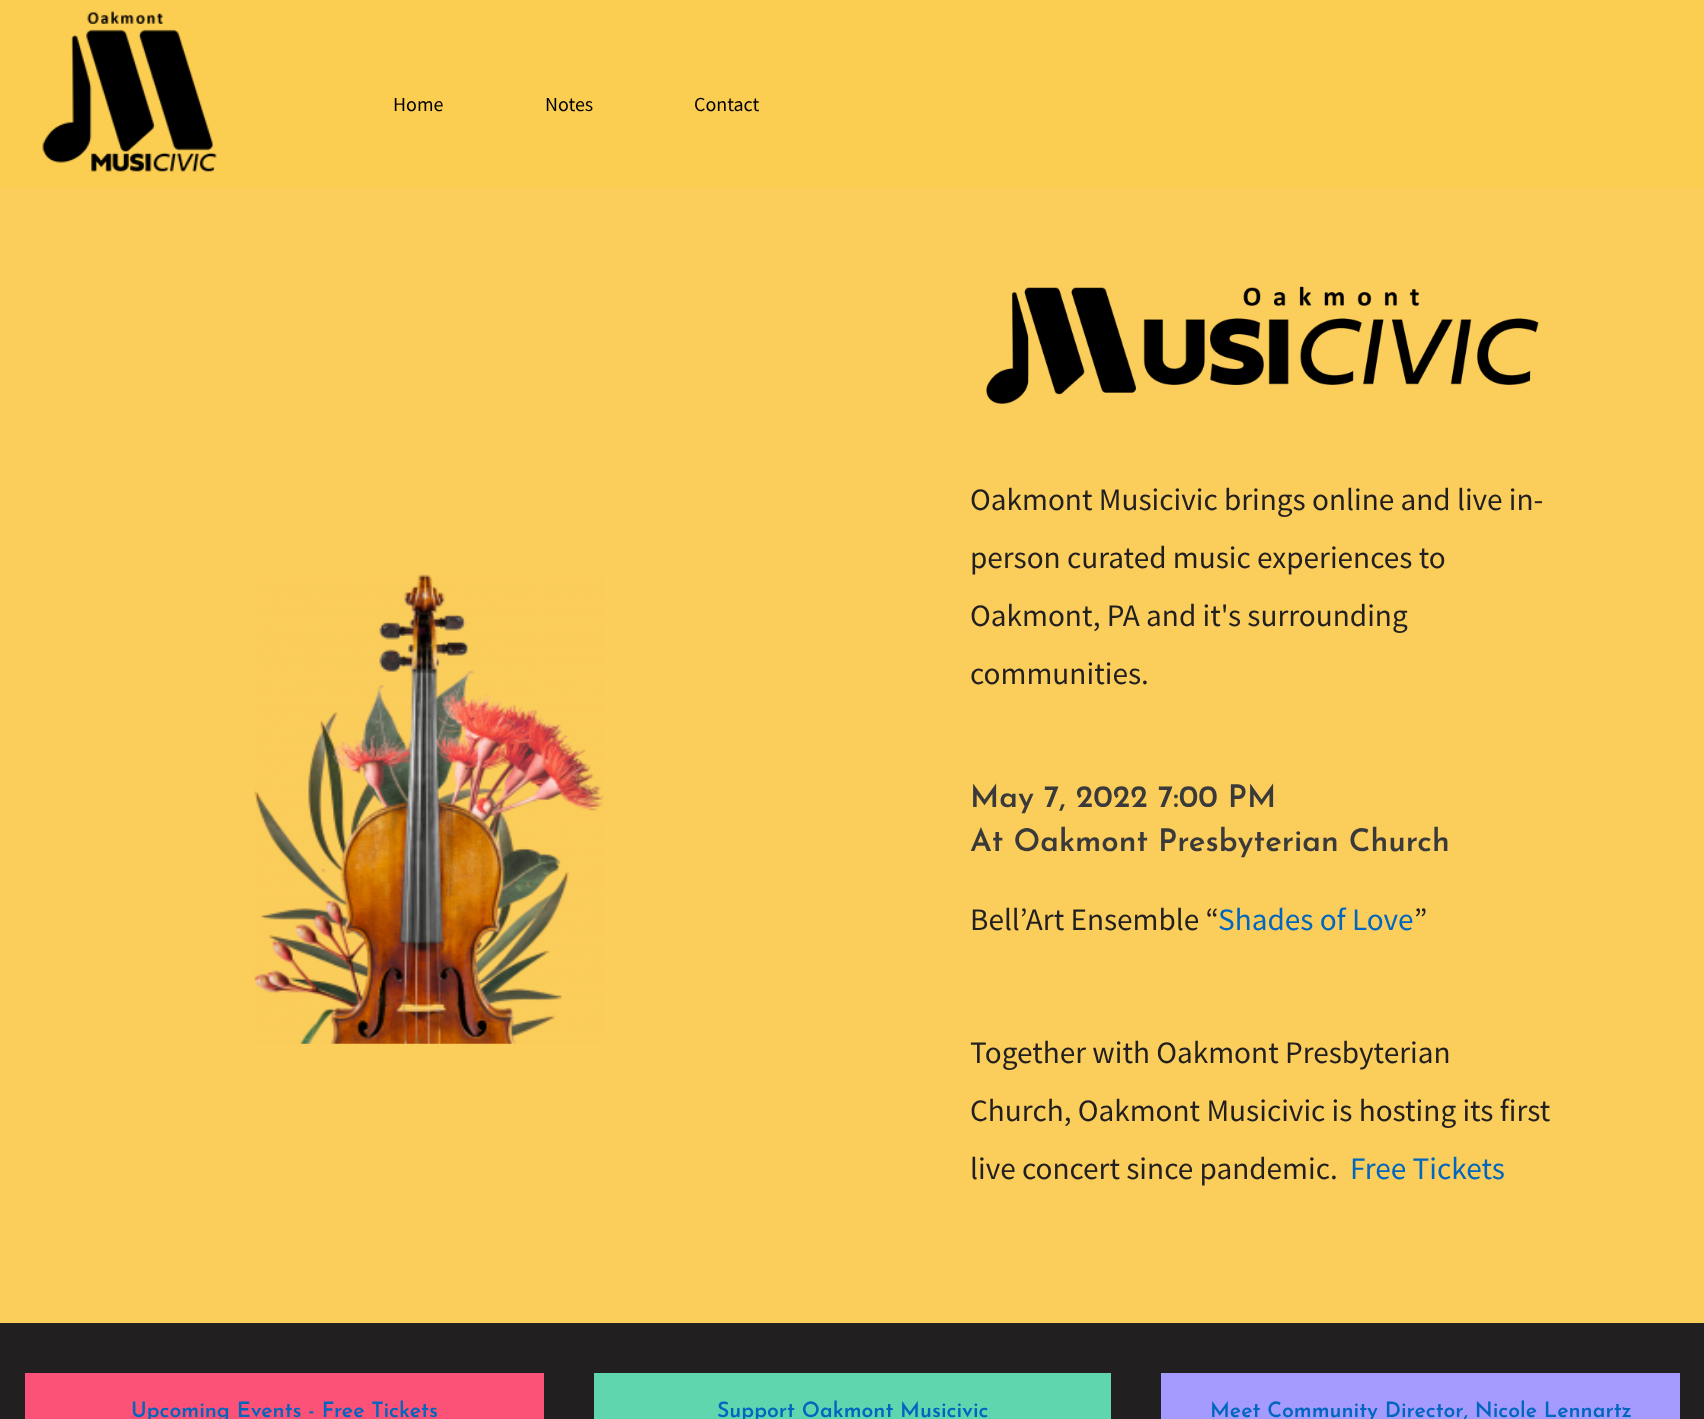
(async () => {
  const canvas = document.querySelector("canvas");
  canvas.width = 1704;
  canvas.height = 1419;
  const ctx = canvas.getContext("2d");
  ctx.miterLimit = 4;
  ctx.fontKerning = "normal";
  async function loadImage(src) {
    const img = new Image();
    img.src = src;
    await img.decode();
    return img;
  }

  ctx.fillStyle = "#fbcd5a";
  ctx.fillRect(0, 0, 1704, 1419);
  ctx.fillStyle = "#fbcd51";
  ctx.fillRect(0, 0, 1704, 188);
  ctx.drawImage(await loadImage("img/1.png"), 42, 11, 175, 161);
  ctx.drawImage(await loadImage("img/2.png"), 254, 574, 350, 470);
  ctx.drawImage(await loadImage("img/3.png"), 986, 286, 553, 118);
  for (const [x, y, w, h, color] of [
    [0, 1323, 1704, 96, "#221f20"],
    [25, 1373, 519, 46, "#fd5277"],
    [594, 1373, 517, 46, "#60d6ae"],
    [1161, 1373, 519, 46, "#a59bff"],
  ]) {
    ctx.fillStyle = color;
    ctx.fillRect(x, y, w, h);
  }
  ctx.font = "20px Source Sans Pro";
  ctx.fillStyle = "#000000";
  for (const [text, x, y] of [
    ["Home", 393, 111],
    ["Notes", 545, 111],
    ["Contact", 694, 111],
  ]) {
    ctx.fillText(text, x, y);
  }
  ctx.font = "31.25px Source Sans Pro";
  ctx.fillStyle = "#221f20";
  for (const [text, x, y] of [
    ["Oakmont Musicivic brings online and live in-", 970, 510],
    ["person curated music experiences to", 970, 568],
    ["Oakmont, PA and it's surrounding", 970, 626],
    ["communities.", 970, 684],
  ]) {
    ctx.fillText(text, x, y);
  }
  ctx.font = "600 31.25px Josefin Sans";
  ctx.fillStyle = "#3a3a3a";
  ctx.fillText("May 7, 2022 7:00 PM", 970, 807);
  ctx.fillText("At Oakmont Presbyterian Church", 970, 851);
  ctx.font = "31.25px Source Sans Pro";
  ctx.fillStyle = "#221f20";
  ctx.fillText("Bell’Art Ensemble “", 970, 930);
  ctx.fillStyle = "#0066bf";
  ctx.fillText("Shades of Love", 1218, 930);
  ctx.fillStyle = "#221f20";
  for (const [text, x, y] of [
    ["”", 1414, 930],
    ["Together with Oakmont Presbyterian", 970, 1063],
    ["Church, Oakmont Musicivic is hosting its first", 970, 1121],
    ["live concert since pandemic.", 970, 1179],
  ]) {
    ctx.fillText(text, x, y);
  }
  ctx.fillStyle = "#0066bf";
  ctx.fillText("Free Tickets", 1350, 1179);
  ctx.font = "600 21.25px Josefin Sans";
  for (const [text, x, y] of [
    ["Upcoming Events - Free Tickets", 131, 1417],
    ["Support Oakmont Musicivic", 717, 1417],
    ["Meet Community Director, Nicole Lennartz", 1210, 1417],
  ]) {
    ctx.fillText(text, x, y);
  }
})();
